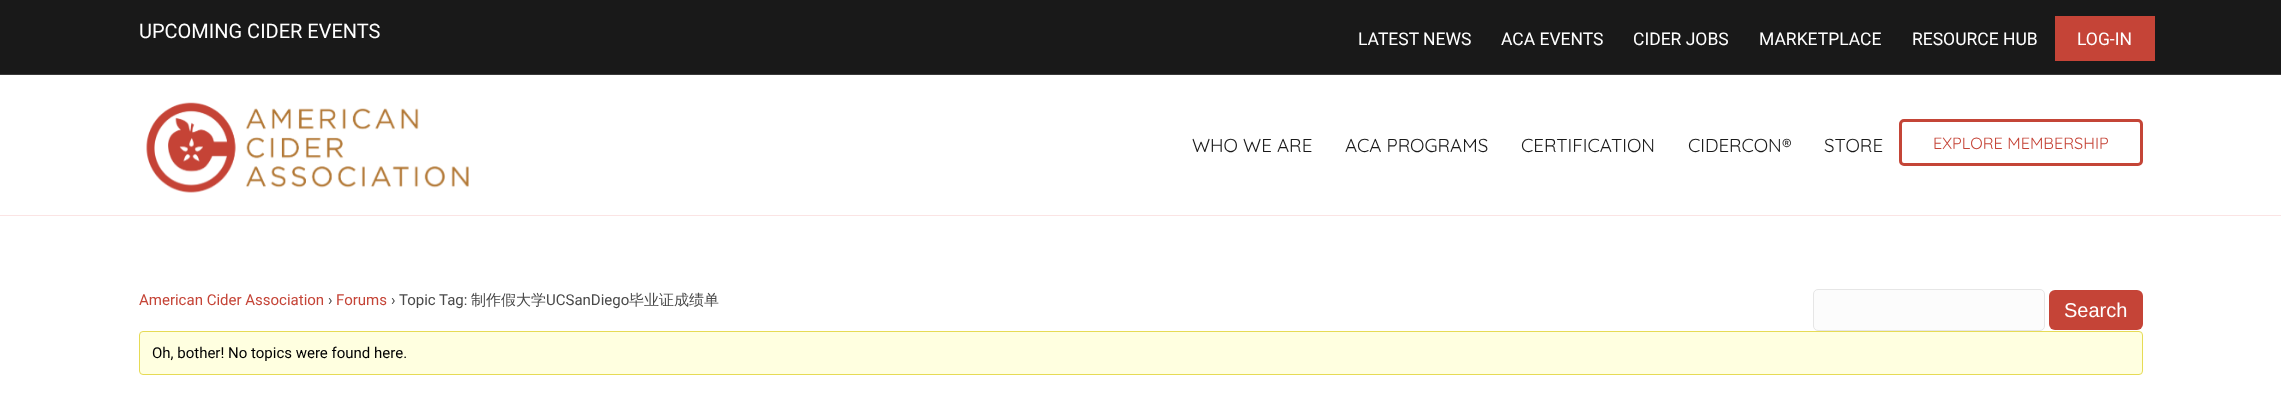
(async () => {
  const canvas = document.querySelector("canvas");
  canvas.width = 2281;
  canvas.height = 406;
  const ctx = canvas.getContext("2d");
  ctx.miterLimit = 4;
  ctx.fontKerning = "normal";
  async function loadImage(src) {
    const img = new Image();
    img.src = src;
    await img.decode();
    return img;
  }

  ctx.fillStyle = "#ffffff";
  ctx.fillRect(0, 0, 2281, 406);
  for (const [x, y, w, h, color] of [
    [0, 0, 2281, 74, "#191919"],
    [0, 74, 2281, 1, "#3a3a3a"],
    [2055, 16, 100, 45, "#c54437"],
    [0, 215, 2281, 1, "#fbe4e4"],
  ]) {
    ctx.fillStyle = color;
    ctx.fillRect(x, y, w, h);
  }
  ctx.drawImage(await loadImage("img/1.png"), 146, 102, 323, 91);
  ctx.beginPath();
  ctx.roundRect(1900.5, 120.5, 241, 44, 3.5);
  ctx.strokeStyle = "#c44537";
  ctx.lineWidth = 3;
  ctx.stroke();
  ctx.fillStyle = "#fcfcfc";
  ctx.beginPath();
  ctx.roundRect(1813.5, 289.5, 231, 41, 4.5);
  ctx.fill();
  ctx.strokeStyle = "#e6e6e6";
  ctx.lineWidth = 1;
  ctx.stroke();
  ctx.fillStyle = "#c54437";
  ctx.beginPath();
  ctx.roundRect(2049, 290, 94, 40, 6);
  ctx.fill();
  ctx.fillStyle = "#ffffe0";
  ctx.beginPath();
  ctx.roundRect(139.5, 331.5, 2003, 43, 3.5);
  ctx.fill();
  ctx.strokeStyle = "#e6db55";
  ctx.stroke();
  ctx.font = "20px Roboto";
  ctx.fillStyle = "#ffffff";
  ctx.fillText("UPCOMING CIDER EVENTS", 139, 38);
  ctx.font = "17.5px Roboto";
  for (const [text, x, y] of [
    ["LATEST NEWS", 1358, 45],
    ["ACA EVENTS", 1501, 45],
    ["CIDER JOBS", 1633, 45],
    ["MARKETPLACE", 1759, 45],
    ["RESOURCE HUB", 1912, 45],
    ["LOG-IN", 2077, 45],
  ]) {
    ctx.fillText(text, x, y);
  }
  ctx.font = "300 18.75px Quicksand";
  ctx.fillStyle = "#191919";
  for (const [text, x, y] of [
    ["WHO WE ARE", 1192, 152],
    ["ACA PROGRAMS", 1345, 152],
    ["CERTIFICATION", 1521, 152],
    ["CIDERCON®", 1688, 152],
    ["STORE", 1824, 152],
  ]) {
    ctx.fillText(text, x, y);
  }
  ctx.font = "300 16.25px Quicksand";
  ctx.fillStyle = "#c54437";
  ctx.fillText("EXPLORE MEMBERSHIP", 1933, 149);
  ctx.font = "15px Roboto";
  ctx.fillText("American Cider Association", 139, 305);
  ctx.fillStyle = "#494949";
  ctx.fillText("›", 328, 305);
  ctx.fillStyle = "#c54437";
  ctx.fillText("Forums", 336, 305);
  ctx.fillStyle = "#494949";
  ctx.fillText("› Topic Tag:", 391, 305);
  ctx.font = "500 15px WenQuanYi Zen Hei";
  ctx.fillText("制作假大学", 471, 305);
  ctx.font = "15px Roboto";
  ctx.fillText("UCSanDiego", 546, 305);
  ctx.font = "500 15px WenQuanYi Zen Hei";
  ctx.fillText("毕业证成绩单", 629, 305);
  ctx.font = "20px Liberation Sans";
  ctx.fillStyle = "#ffffff";
  ctx.fillText("Search", 2064, 317);
  ctx.font = "15px Roboto";
  ctx.fillStyle = "#000000";
  ctx.fillText("Oh, bother! No topics were found here.", 152, 358);
})();
